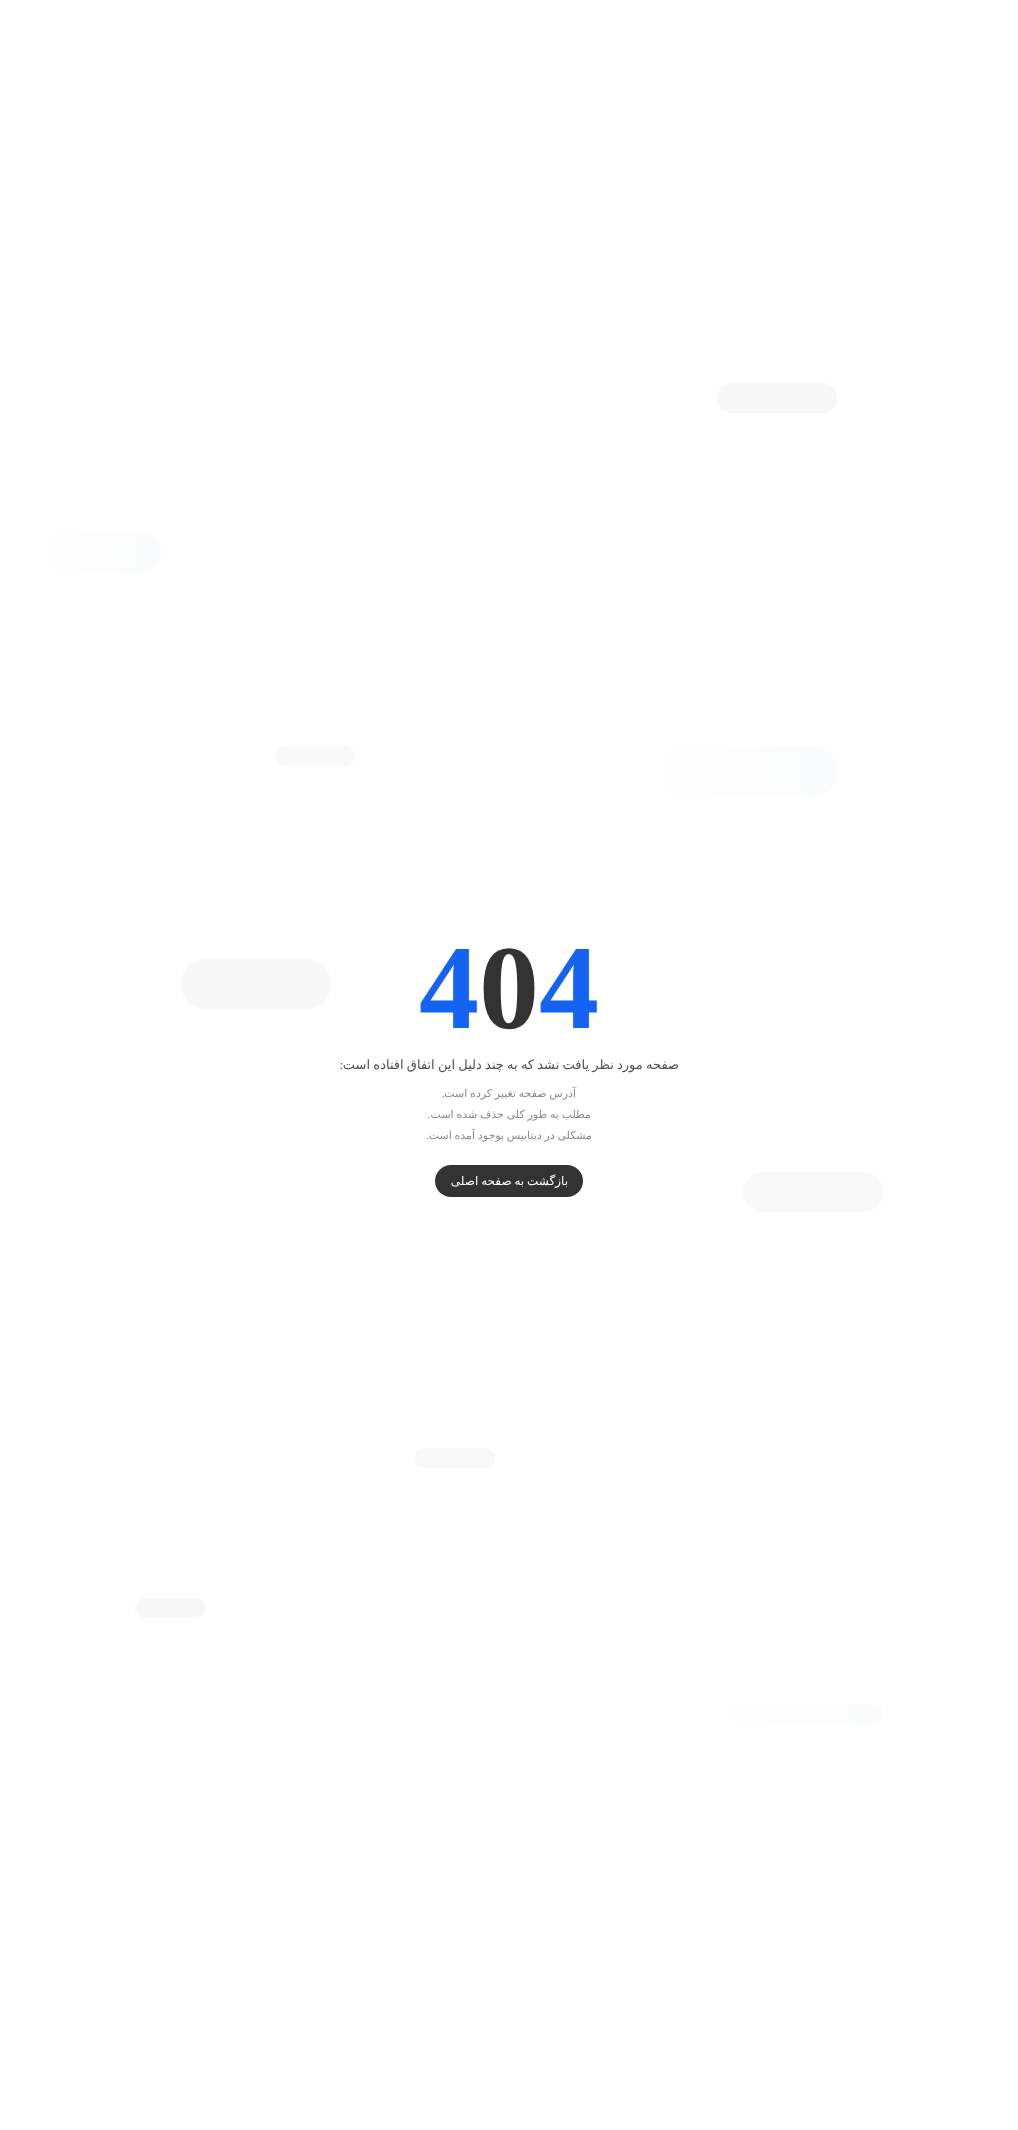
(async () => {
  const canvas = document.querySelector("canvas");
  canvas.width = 1018;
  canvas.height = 2130;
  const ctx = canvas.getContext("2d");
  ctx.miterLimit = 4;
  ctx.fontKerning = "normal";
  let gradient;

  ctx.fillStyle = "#ffffff";
  ctx.fillRect(0, 0, 1018, 2130);
  ctx.fillStyle = "#f7f7f7";
  ctx.beginPath();
  ctx.roundRect(717, 383, 120, 30, 15);
  ctx.fill();
  ctx.beginPath();
  ctx.roundRect(181, 959, 150, 50, 25);
  ctx.fill();
  ctx.beginPath();
  ctx.roundRect(135, 1598, 70, 20, 10);
  ctx.fill();
  gradient = ctx.createLinearGradient(41, 553, 161, 553);
  gradient.addColorStop(0, "#ffffff");
  gradient.addColorStop(1, "#fafbfc");
  ctx.fillStyle = gradient;
  ctx.beginPath();
  ctx.roundRect(41, 533, 120, 40, 20);
  ctx.fill();
  gradient = ctx.createLinearGradient(657, 771, 837, 771);
  gradient.addColorStop(0, "#ffffff");
  gradient.addColorStop(1, "#fafbfc");
  ctx.fillStyle = gradient;
  ctx.beginPath();
  ctx.roundRect(657, 746, 180, 50, 25);
  ctx.fill();
  gradient = ctx.createLinearGradient(723, 1714, 883, 1714);
  gradient.addColorStop(0, "#ffffff");
  gradient.addColorStop(1, "#fafbfc");
  ctx.fillStyle = gradient;
  ctx.beginPath();
  ctx.roundRect(723, 1704, 160, 20, 10);
  ctx.fill();
  ctx.fillStyle = "#f8f8f8";
  ctx.beginPath();
  ctx.roundRect(275, 746, 80, 20, 10);
  ctx.fill();
  ctx.beginPath();
  ctx.roundRect(743, 1172, 140, 40, 20);
  ctx.fill();
  ctx.beginPath();
  ctx.roundRect(415, 1448, 80, 20, 10);
  ctx.fill();
  ctx.fillStyle = "#333333";
  ctx.beginPath();
  ctx.roundRect(435, 1165, 148, 32, 16);
  ctx.fill();
  ctx.font = "bold 120px Liberation Serif";
  ctx.fillStyle = "#1463f3";
  ctx.fillText("4", 539, 1028);
  ctx.fillStyle = "#333333";
  ctx.fillText("0", 479, 1028);
  ctx.fillStyle = "#1463f3";
  ctx.fillText("4", 419, 1028);
  ctx.wordSpacing = "-0.9px";
  ctx.direction = "rtl";
  ctx.font = "13px DejaVu Sans";
  ctx.fillStyle = "#505050";
  ctx.fillText("صفحه مورد نظر یافت نشد که به چند دلیل این اتفاق افتاده است", 679, 1069);
  ctx.wordSpacing = "0px";
  ctx.font = "13px Liberation Serif";
  ctx.fillText(":", 343, 1069);
  ctx.wordSpacing = "-0.75px";
  ctx.font = "11px DejaVu Sans";
  ctx.fillStyle = "#888888";
  ctx.fillText("آدرس صفحه تغییر کرده است", 576, 1097);
  ctx.wordSpacing = "0px";
  ctx.font = "11px Liberation Serif";
  ctx.fillText(".", 445, 1097);
  ctx.wordSpacing = "-0.75px";
  ctx.font = "11px DejaVu Sans";
  ctx.fillText("مطلب به طور کلی حذف شده است", 591, 1118);
  ctx.wordSpacing = "0px";
  ctx.font = "11px Liberation Serif";
  ctx.fillText(".", 430, 1118);
  ctx.wordSpacing = "-0.75px";
  ctx.font = "11px DejaVu Sans";
  ctx.fillText("مشکلی در دیتابیس بوجود آمده است", 592, 1139);
  ctx.wordSpacing = "0px";
  ctx.font = "11px Liberation Serif";
  ctx.fillText(".", 429, 1139);
  ctx.wordSpacing = "-1px";
  ctx.font = "12px DejaVu Sans";
  ctx.fillStyle = "#ffffff";
  ctx.fillText("بازگشت به صفحه اصلی", 568, 1185);
})();
